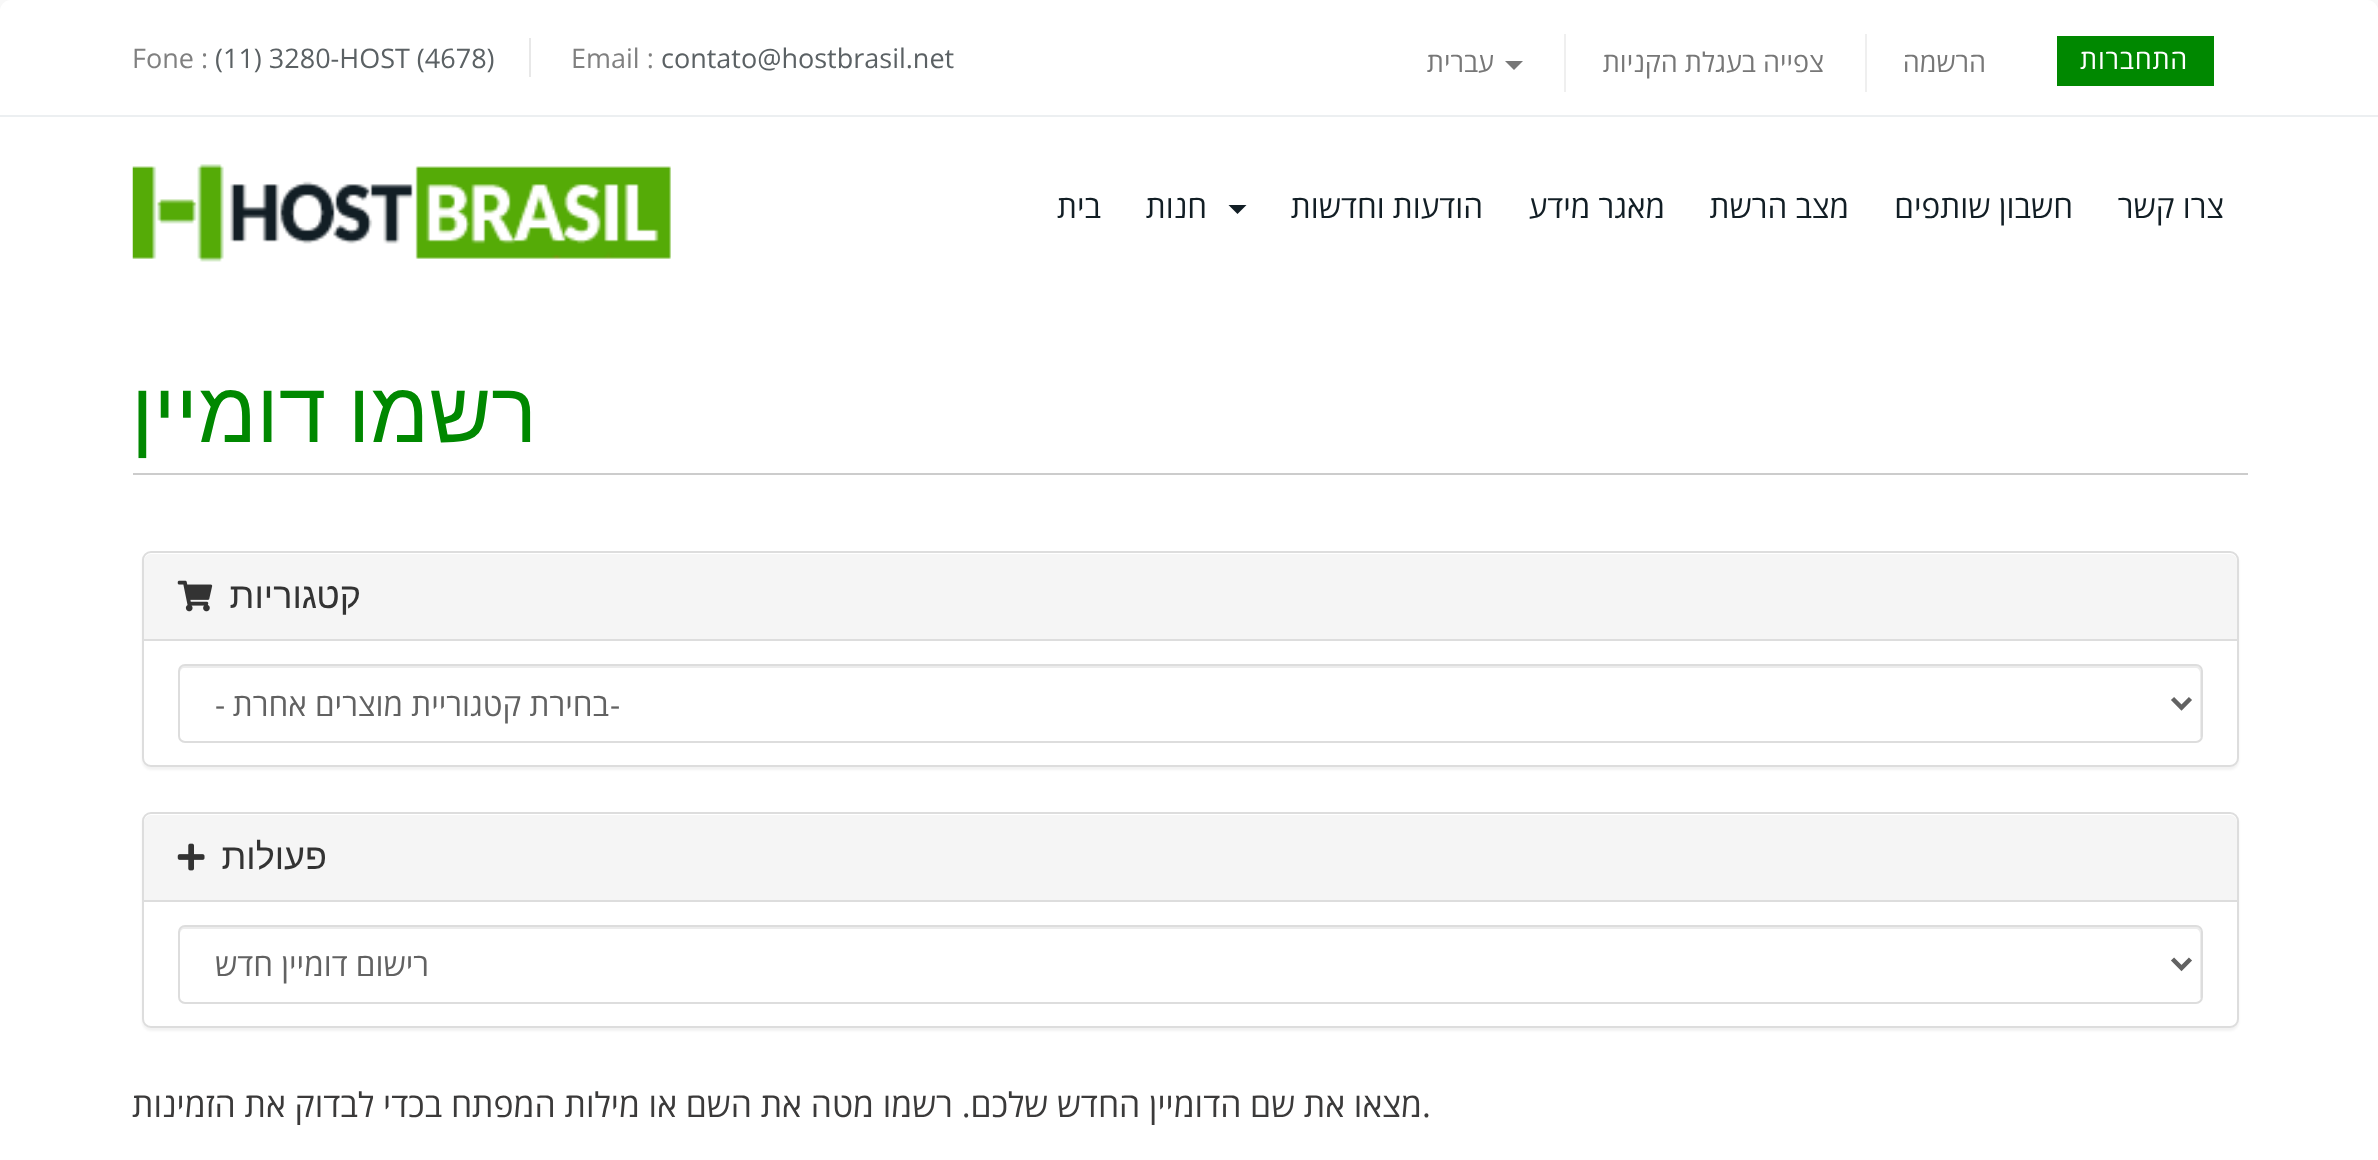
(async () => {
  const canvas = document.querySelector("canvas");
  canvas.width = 2378;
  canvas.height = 1160;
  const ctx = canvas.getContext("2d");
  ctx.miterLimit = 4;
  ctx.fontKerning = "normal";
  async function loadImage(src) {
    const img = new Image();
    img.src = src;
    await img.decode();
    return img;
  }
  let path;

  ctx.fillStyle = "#f8f8f8";
  ctx.fillRect(0, 0, 2378, 1160);
  ctx.fillStyle = "#ffffff";
  ctx.beginPath();
  ctx.roundRect(0, 0, 2378, 117, [11, 11, 0, 0]);
  ctx.fill();
  for (const [x, y, w, h, color] of [
    [0, 115, 2378, 2, "#eceff1"],
    [2057, 36, 157, 50, "#008800"],
    [1865, 34, 2, 58, "#efefef"],
    [1564, 34, 2, 58, "#efefef"],
  ]) {
    ctx.fillStyle = color;
    ctx.fillRect(x, y, w, h);
  }
  ctx.fillStyle = "#777777";
  path = new Path2D("M1505 61H1523L1514 70Z");
  ctx.fill(path);
  ctx.fillStyle = "#e8e8e8";
  ctx.fillRect(529, 38, 2, 39);
  ctx.fillStyle = "#ffffff";
  ctx.fillRect(0, 117, 2378, 1043);
  ctx.fillStyle = "#121e25";
  path = new Path2D("M1228.5 205H1246.5L1237.5 214Z");
  ctx.fill(path);
  ctx.drawImage(await loadImage("img/1.png"), 132, 164, 539, 98);
  ctx.fillStyle = "#cccccc";
  ctx.fillRect(133, 473, 2115, 2);
  ctx.fillStyle = "rgba(0, 0, 0, 0.05)";
  ctx.filter = "blur(1px)";
  ctx.beginPath();
  ctx.roundRect(142, 554, 2097, 216, 9);
  ctx.fill();
  ctx.filter = "none";
  ctx.fillStyle = "#ffffff";
  ctx.beginPath();
  ctx.roundRect(143, 552, 2095, 214, 8);
  ctx.fill();
  ctx.strokeStyle = "#dddddd";
  ctx.lineWidth = 2;
  ctx.stroke();
  ctx.fillStyle = "#f5f5f5";
  ctx.beginPath();
  ctx.roundRect(144, 554, 2093, 87, [7, 7, 0, 0]);
  ctx.fill();
  ctx.fillStyle = "#dddddd";
  ctx.fillRect(144, 639, 2093, 2);
  ctx.drawImage(await loadImage("img/2.png"), 177, 580, 36, 32);
  ctx.fillStyle = "#ececec";
  path = new Path2D("M184 668H2196C2198 668 2200 670 2200 673V738C2201 737 2201 736 2201 735V671C2201 668 2199 666 2196 666H185C182 666 180 668 180 671V673C180 670 182 668 184 668Z");
  ctx.fill(path);
  ctx.beginPath();
  ctx.roundRect(179, 665, 2023, 77, 6);
  ctx.stroke();
  path = new Path2D("M2172.5 698.5L2181.5 707.5L2190.5 698.5");
  ctx.strokeStyle = "#626262";
  ctx.lineWidth = 4.5;
  ctx.stroke(path);
  ctx.fillStyle = "rgba(0, 0, 0, 0.05)";
  ctx.filter = "blur(1px)";
  ctx.beginPath();
  ctx.roundRect(142, 815, 2097, 216, 9);
  ctx.fill();
  ctx.filter = "none";
  ctx.fillStyle = "#ffffff";
  ctx.beginPath();
  ctx.roundRect(143, 813, 2095, 214, 8);
  ctx.fill();
  ctx.strokeStyle = "#dddddd";
  ctx.lineWidth = 2;
  ctx.stroke();
  ctx.fillStyle = "#f5f5f5";
  ctx.beginPath();
  ctx.roundRect(144, 815, 2093, 87, [7, 7, 0, 0]);
  ctx.fill();
  ctx.fillStyle = "#dddddd";
  ctx.fillRect(144, 900, 2093, 2);
  ctx.drawImage(await loadImage("img/3.png"), 177, 843, 28, 28);
  ctx.fillStyle = "#ececec";
  path = new Path2D("M184 929H2196C2198 929 2200 931 2200 934V999C2201 998 2201 997 2201 996V932C2201 929 2199 927 2196 927H185C182 927 180 929 180 932V934C180 931 182 929 184 929Z");
  ctx.fill(path);
  ctx.beginPath();
  ctx.roundRect(179, 926, 2023, 77, 6);
  ctx.stroke();
  path = new Path2D("M2172.5 959L2181.5 968L2190.5 959");
  ctx.strokeStyle = "#626262";
  ctx.lineWidth = 4.5;
  ctx.stroke(path);
  ctx.letterSpacing = "0.75px";
  ctx.direction = "rtl";
  ctx.font = "27px Open Sans";
  ctx.fillStyle = "#ffffff";
  ctx.fillText("התחברות", 2188, 69);
  ctx.letterSpacing = "0px";
  ctx.fillStyle = "#777777";
  for (const [text, x, y] of [
    ["הרשמה", 1986, 72],
    ["צפייה בעגלת הקניות", 1824, 72],
    ["עברית", 1494, 72],
  ]) {
    ctx.fillText(text, x, y);
  }
  ctx.direction = "ltr";
  ctx.fillStyle = "#5b6164";
  ctx.fillText("contato@hostbrasil.net", 661, 68);
  ctx.fillStyle = "#808080";
  ctx.fillText("Email :", 571, 68);
  ctx.fillStyle = "#5b6164";
  ctx.fillText("(11) 3280-HOST (4678)", 215, 68);
  ctx.fillStyle = "#808080";
  ctx.fillText("Fone :", 132, 68);
  ctx.direction = "rtl";
  ctx.font = "31.5px Open Sans";
  ctx.fillStyle = "#121e25";
  for (const [text, x, y] of [
    ["צרו קשר", 2224, 218],
    ["חשבון שותפים", 2073, 218],
    ["מצב הרשת", 1849, 218],
    ["מאגר מידע", 1665, 218],
    ["הודעות וחדשות", 1483, 218],
    ["חנות", 1207, 218],
    ["בית", 1101, 218],
  ]) {
    ctx.fillText(text, x, y);
  }
  ctx.wordSpacing = "-2px";
  ctx.font = "85.5px Liberation Sans";
  ctx.fillStyle = "#008800";
  ctx.fillText("רשמו דומיין", 537, 442);
  ctx.wordSpacing = "0px";
  ctx.font = "36px Liberation Sans";
  ctx.fillStyle = "#333333";
  ctx.fillText("קטגוריות", 361, 608);
  ctx.direction = "ltr";
  ctx.font = "31.5px Open Sans";
  ctx.fillStyle = "#626262";
  ctx.fillText("-", 610, 716);
  ctx.direction = "rtl";
  ctx.fillText("בחירת קטגוריית מוצרים אחרת", 609, 716);
  ctx.direction = "ltr";
  ctx.fillText("-", 215, 716);
  ctx.direction = "rtl";
  ctx.font = "36px Liberation Sans";
  ctx.fillStyle = "#333333";
  ctx.fillText("פעולות", 327, 869);
  ctx.font = "31.5px Open Sans";
  ctx.fillStyle = "#626262";
  ctx.fillText("רישום דומיין חדש", 429, 976);
  ctx.direction = "ltr";
  ctx.font = "33.75px Open Sans";
  ctx.fillStyle = "#3b3a3a";
  ctx.fillText(".", 1422, 1117);
  ctx.direction = "rtl";
  ctx.fillText("מצאו את שם הדומיין החדש שלכם. רשמו מטה את השם או מילות המפתח בכדי לבדוק את הזמינות", 1422, 1117);
})();
